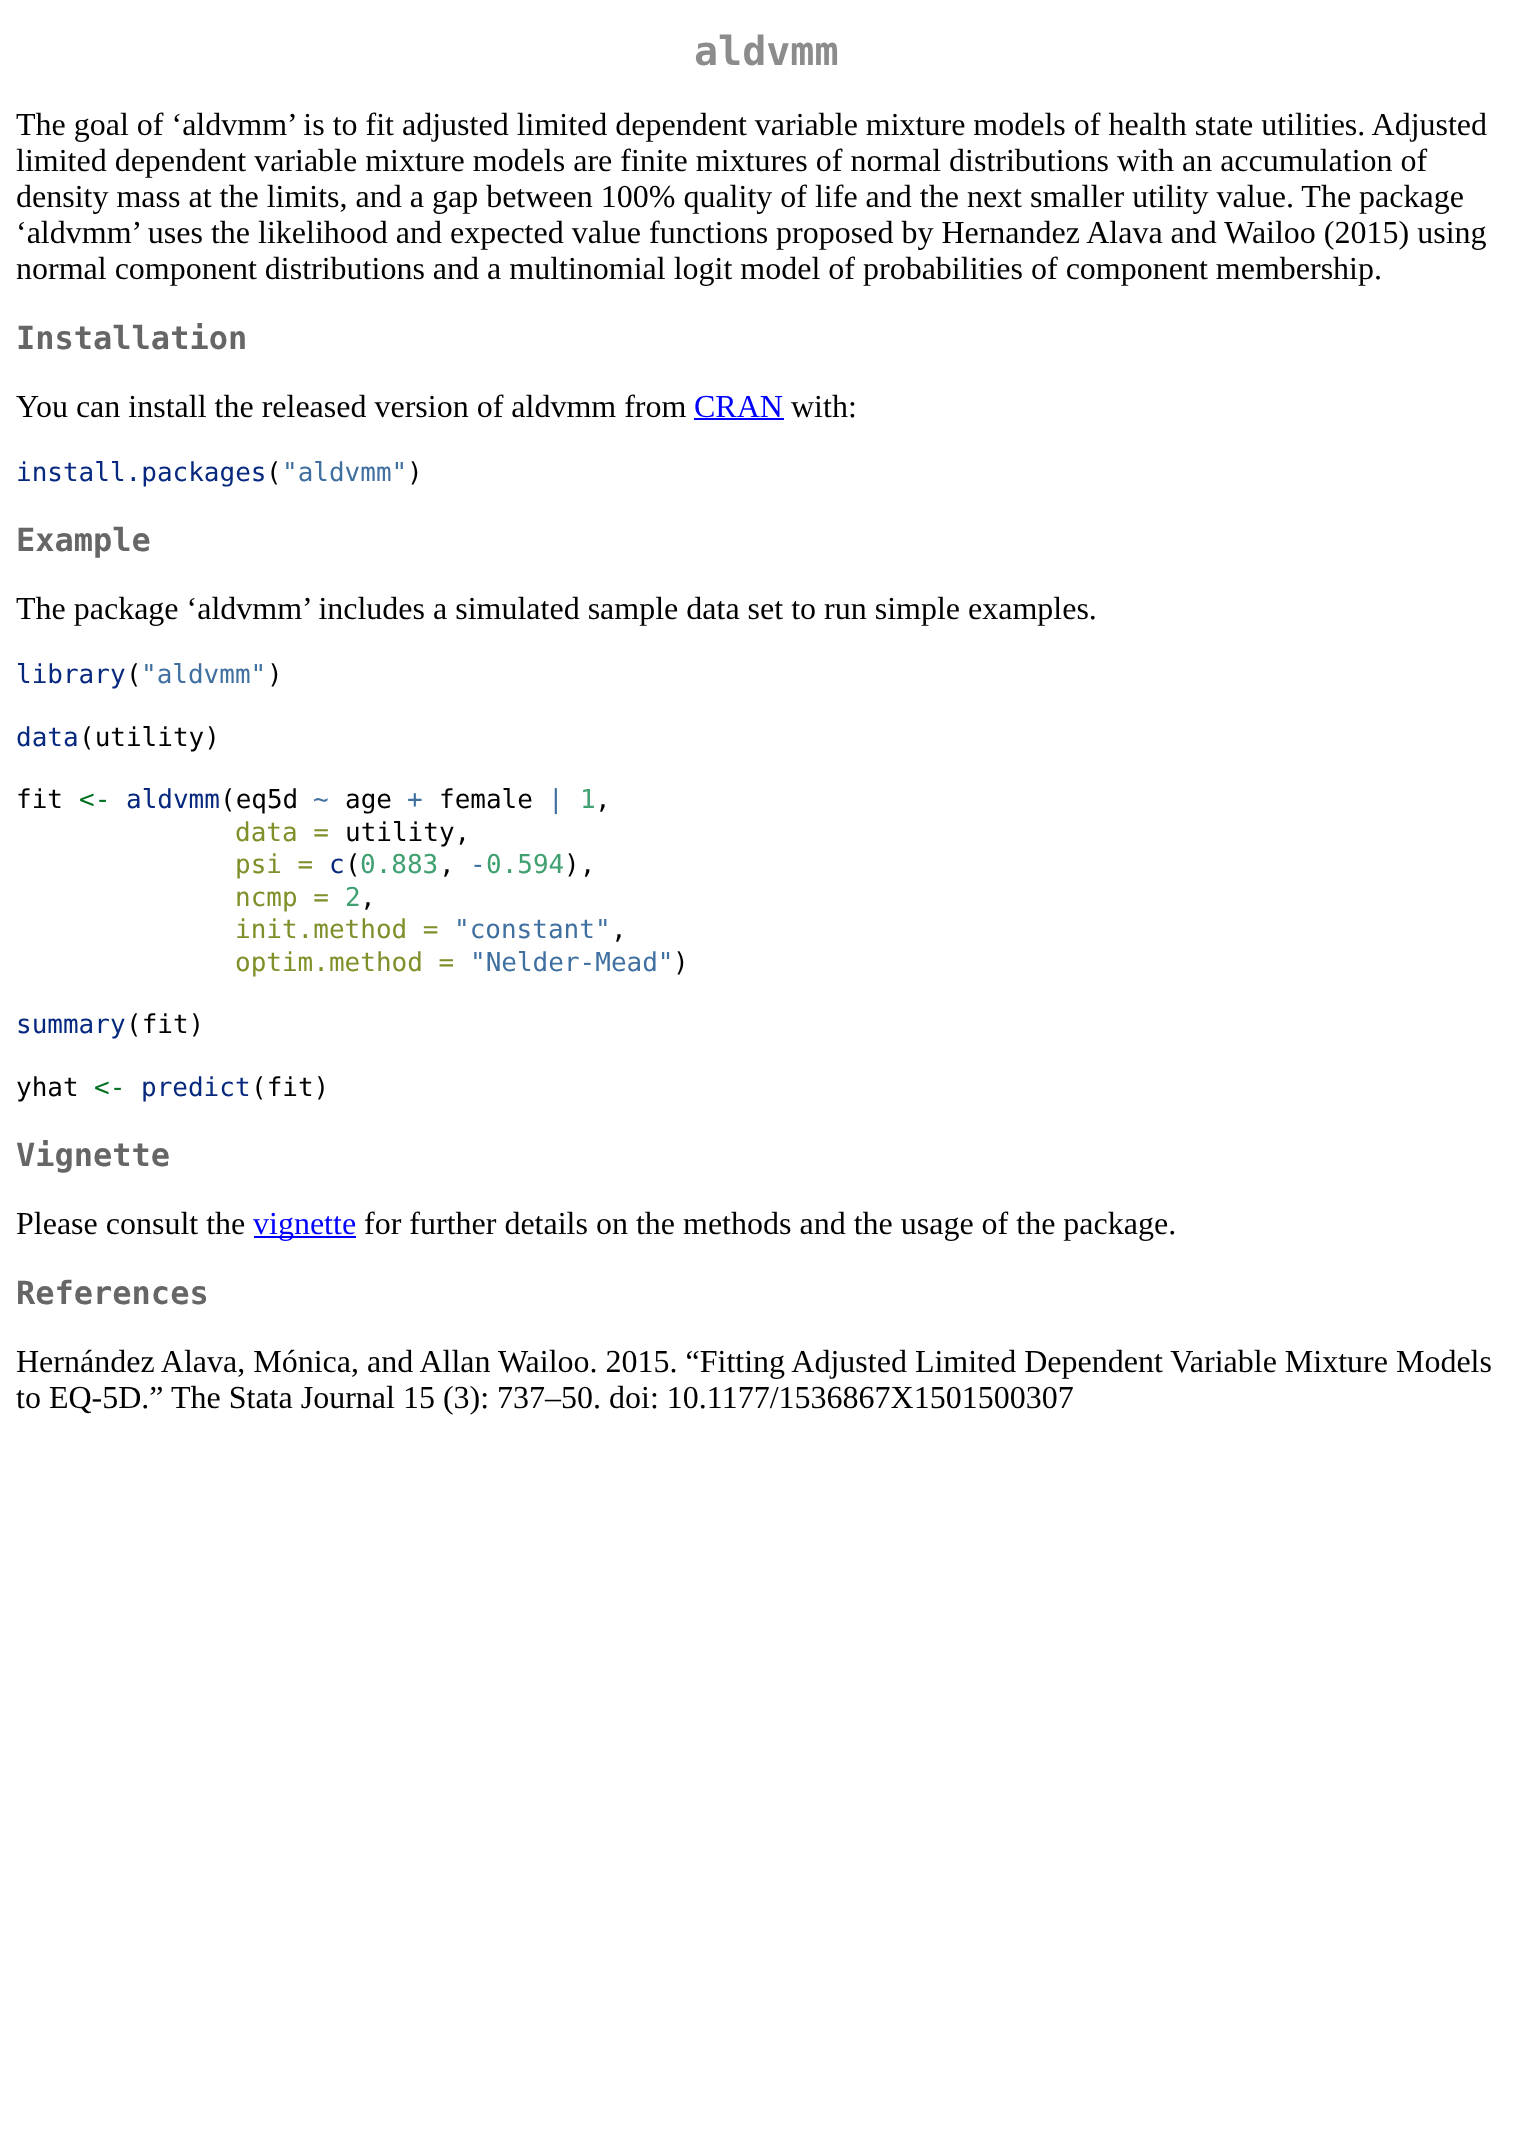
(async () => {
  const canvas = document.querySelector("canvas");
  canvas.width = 1532;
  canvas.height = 2144;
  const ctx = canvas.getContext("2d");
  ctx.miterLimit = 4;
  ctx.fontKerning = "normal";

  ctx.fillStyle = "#ffffff";
  ctx.fillRect(0, 0, 1532, 2144);
  ctx.fillStyle = "#0000ff";
  ctx.fillRect(694, 418, 90, 2);
  ctx.fillRect(254, 1236, 102, 2);
  ctx.font = "bold 40px DejaVu Sans Mono";
  ctx.fillStyle = "#8c8c8c";
  ctx.fillText("aldvmm", 694, 65);
  ctx.font = "32px Liberation Serif";
  ctx.fillStyle = "#000000";
  for (const [text, x, y] of [
    ["The goal of ‘aldvmm’ is to fit adjusted limited dependent variable mixture models of health state utilities. Adjusted", 16, 135],
    ["limited dependent variable mixture models are finite mixtures of normal distributions with an accumulation of", 16, 171],
    ["density mass at the limits, and a gap between 100% quality of life and the next smaller utility value. The package", 16, 207],
    ["‘aldvmm’ uses the likelihood and expected value functions proposed by Hernandez Alava and Wailoo (2015) using", 16, 243],
    ["normal component distributions and a multinomial logit model of probabilities of component membership.", 16, 279],
  ]) {
    ctx.fillText(text, x, y);
  }
  ctx.font = "bold 32px DejaVu Sans Mono";
  ctx.fillStyle = "#666666";
  ctx.fillText("Installation", 16, 349);
  ctx.font = "32px Liberation Serif";
  ctx.fillStyle = "#000000";
  ctx.fillText("You can install the released version of aldvmm from", 16, 417);
  ctx.fillStyle = "#0000ff";
  ctx.fillText("CRAN", 694, 417);
  ctx.fillStyle = "#000000";
  ctx.fillText("with:", 791, 417);
  ctx.font = "26px DejaVu Sans Mono";
  ctx.fillStyle = "#06287e";
  ctx.fillText("install.packages", 16, 481);
  ctx.fillStyle = "#000000";
  ctx.fillText("(", 266, 481);
  ctx.fillStyle = "#4070a0";
  ctx.fillText("\"aldvmm\"", 282, 481);
  ctx.fillStyle = "#000000";
  ctx.fillText(")", 407, 481);
  ctx.font = "bold 32px DejaVu Sans Mono";
  ctx.fillStyle = "#666666";
  ctx.fillText("Example", 16, 551);
  ctx.font = "32px Liberation Serif";
  ctx.fillStyle = "#000000";
  ctx.fillText("The package ‘aldvmm’ includes a simulated sample data set to run simple examples.", 16, 619);
  ctx.font = "26px DejaVu Sans Mono";
  ctx.fillStyle = "#06287e";
  ctx.fillText("library", 16, 683);
  ctx.fillStyle = "#000000";
  ctx.fillText("(", 126, 683);
  ctx.fillStyle = "#4070a0";
  ctx.fillText("\"aldvmm\"", 141, 683);
  ctx.fillStyle = "#000000";
  ctx.fillText(")", 267, 683);
  ctx.fillStyle = "#06287e";
  ctx.fillText("data", 16, 746);
  ctx.fillStyle = "#000000";
  ctx.fillText("(utility)", 79, 746);
  ctx.fillText("fit", 16, 808);
  ctx.fillStyle = "#007020";
  ctx.fillText("<-", 79, 808);
  ctx.fillStyle = "#06287e";
  ctx.fillText("aldvmm", 126, 808);
  ctx.fillStyle = "#000000";
  ctx.fillText("(eq5d", 220, 808);
  ctx.fillStyle = "#4070a0";
  ctx.fillText("~", 313, 808);
  ctx.fillStyle = "#000000";
  ctx.fillText("age", 345, 808);
  ctx.fillStyle = "#4070a0";
  ctx.fillText("+", 407, 808);
  ctx.fillStyle = "#000000";
  ctx.fillText("female", 439, 808);
  ctx.fillStyle = "#4070a0";
  ctx.fillText("|", 548, 808);
  ctx.fillStyle = "#40a070";
  ctx.fillText("1", 580, 808);
  ctx.fillStyle = "#000000";
  ctx.fillText(",", 595, 808);
  ctx.fillStyle = "#7d9029";
  ctx.fillText("data =", 235, 841);
  ctx.fillStyle = "#000000";
  ctx.fillText("utility,", 345, 841);
  ctx.fillStyle = "#7d9029";
  ctx.fillText("psi =", 235, 873);
  ctx.fillStyle = "#06287e";
  ctx.fillText("c", 329, 873);
  ctx.fillStyle = "#000000";
  ctx.fillText("(", 345, 873);
  ctx.fillStyle = "#40a070";
  ctx.fillText("0.883", 360, 873);
  ctx.fillStyle = "#4070a0";
  ctx.fillText("-", 470, 873);
  ctx.fillStyle = "#40a070";
  ctx.fillText("0.594", 486, 873);
  ctx.fillStyle = "#000000";
  ctx.fillText("),", 564, 873);
  ctx.fillText(",", 439, 873);
  ctx.fillStyle = "#7d9029";
  ctx.fillText("ncmp =", 235, 906);
  ctx.fillStyle = "#40a070";
  ctx.fillText("2", 345, 906);
  ctx.fillStyle = "#000000";
  ctx.fillText(",", 360, 906);
  ctx.fillStyle = "#7d9029";
  ctx.fillText("init.method =", 235, 938);
  ctx.fillStyle = "#4070a0";
  ctx.fillText("\"constant\"", 454, 938);
  ctx.fillStyle = "#000000";
  ctx.fillText(",", 611, 938);
  ctx.fillStyle = "#7d9029";
  ctx.fillText("optim.method =", 235, 971);
  ctx.fillStyle = "#4070a0";
  ctx.fillText("\"Nelder-Mead\"", 470, 971);
  ctx.fillStyle = "#000000";
  ctx.fillText(")", 673, 971);
  ctx.fillStyle = "#06287e";
  ctx.fillText("summary", 16, 1033);
  ctx.fillStyle = "#000000";
  ctx.fillText("(fit)", 126, 1033);
  ctx.fillText("yhat", 16, 1096);
  ctx.fillStyle = "#007020";
  ctx.fillText("<-", 94, 1096);
  ctx.fillStyle = "#06287e";
  ctx.fillText("predict", 141, 1096);
  ctx.fillStyle = "#000000";
  ctx.fillText("(fit)", 251, 1096);
  ctx.font = "bold 32px DejaVu Sans Mono";
  ctx.fillStyle = "#666666";
  ctx.fillText("Vignette", 16, 1166);
  ctx.font = "32px Liberation Serif";
  ctx.fillStyle = "#000000";
  ctx.fillText("Please consult the", 16, 1234);
  ctx.fillStyle = "#0000ff";
  ctx.fillText("vignette", 253, 1234);
  ctx.fillStyle = "#000000";
  ctx.fillText("for further details on the methods and the usage of the package.", 364, 1234);
  ctx.font = "bold 32px DejaVu Sans Mono";
  ctx.fillStyle = "#666666";
  ctx.fillText("References", 16, 1304);
  ctx.font = "32px Liberation Serif";
  ctx.fillStyle = "#000000";
  ctx.fillText("Hernández Alava, Mónica, and Allan Wailoo. 2015. “Fitting Adjusted Limited Dependent Variable Mixture Models", 16, 1372);
  ctx.fillText("to EQ-5D.” The Stata Journal 15 (3): 737–50. doi: 10.1177/1536867X1501500307", 16, 1408);
})();
